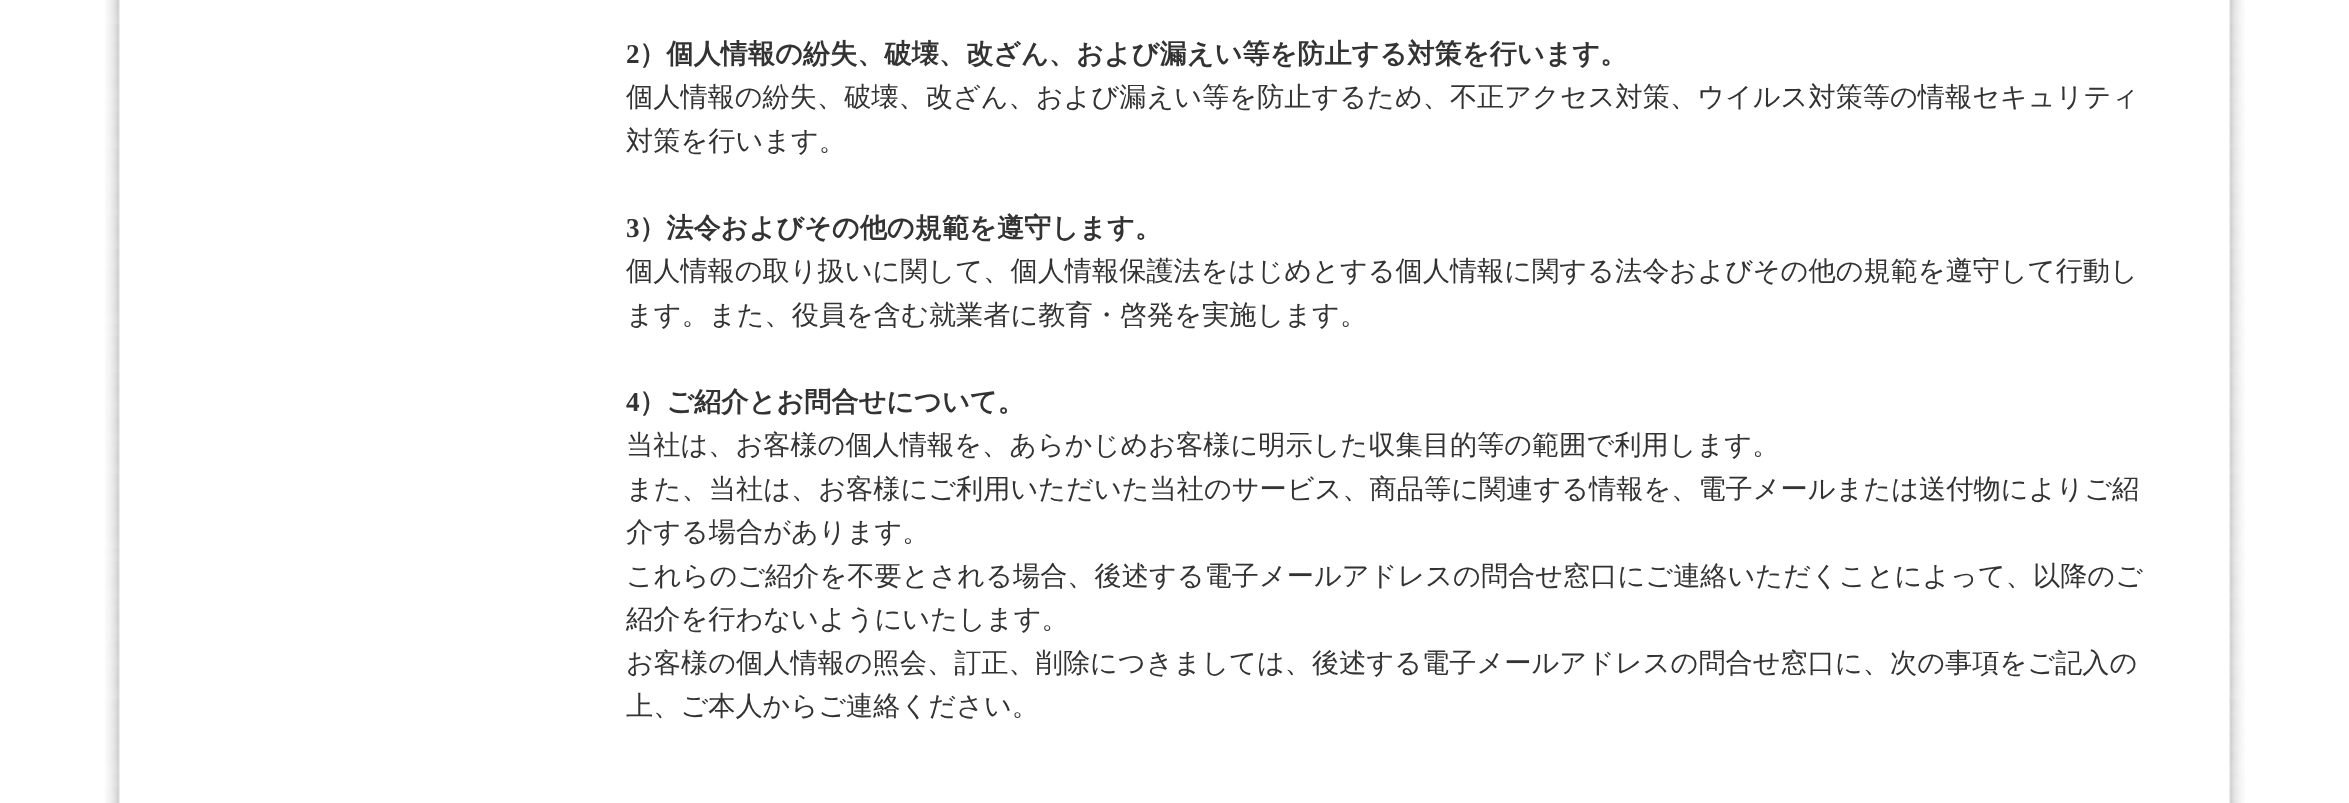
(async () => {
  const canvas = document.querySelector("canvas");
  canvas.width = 2349;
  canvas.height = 803;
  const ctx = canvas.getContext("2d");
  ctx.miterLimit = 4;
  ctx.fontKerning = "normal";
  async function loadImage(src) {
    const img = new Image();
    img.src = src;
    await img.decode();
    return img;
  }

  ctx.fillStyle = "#ffffff";
  ctx.fillRect(0, 0, 2349, 803);
  ctx.drawImage(await loadImage("img/1.png"), 105, 0, 2140, 803);
  ctx.font = "bold 27.2px Liberation Serif";
  ctx.fillStyle = "#333333";
  ctx.fillText("2", 626, 63);
  ctx.font = "bold 27.2px WenQuanYi Zen Hei";
  ctx.fillText("）個人情報の紛失、破壊、改ざん、および漏えい等を防止する対策を行います。", 639, 63);
  ctx.font = "500 27.2px WenQuanYi Zen Hei";
  ctx.fillText("個人情報の紛失、破壊、改ざん、および漏えい等を防止するため、不正アクセス対策、ウイルス対策等の情報セキュリティ", 626, 106);
  ctx.fillText("対策を行います。", 626, 150);
  ctx.font = "bold 27.2px Liberation Serif";
  ctx.fillText("3", 626, 237);
  ctx.font = "bold 27.2px WenQuanYi Zen Hei";
  ctx.fillText("）法令およびその他の規範を遵守します。", 639, 237);
  ctx.font = "500 27.2px WenQuanYi Zen Hei";
  ctx.fillText("個人情報の取り扱いに関して、個人情報保護法をはじめとする個人情報に関する法令およびその他の規範を遵守して行動し", 626, 280);
  ctx.fillText("ます。また、役員を含む就業者に教育・啓発を実施します。", 626, 324);
  ctx.font = "bold 27.2px Liberation Serif";
  ctx.fillText("4", 626, 411);
  ctx.font = "bold 27.2px WenQuanYi Zen Hei";
  ctx.fillText("）ご紹介とお問合せについて。", 639, 411);
  ctx.font = "500 27.2px WenQuanYi Zen Hei";
  for (const [text, x, y] of [
    ["当社は、お客様の個人情報を、あらかじめお客様に明示した収集目的等の範囲で利用します。", 626, 454],
    ["また、当社は、お客様にご利用いただいた当社のサービス、商品等に関連する情報を、電子メールまたは送付物によりご紹", 626, 498],
    ["介する場合があります。", 626, 541],
    ["これらのご紹介を不要とされる場合、後述する電子メールアドレスの問合せ窓口にご連絡いただくことによって、以降のご", 626, 585],
    ["紹介を行わないようにいたします。", 626, 628],
    ["お客様の個人情報の照会、訂正、削除につきましては、後述する電子メールアドレスの問合せ窓口に、次の事項をご記入の", 626, 672],
    ["上、ご本人からご連絡ください。", 626, 715],
  ]) {
    ctx.fillText(text, x, y);
  }
})();
